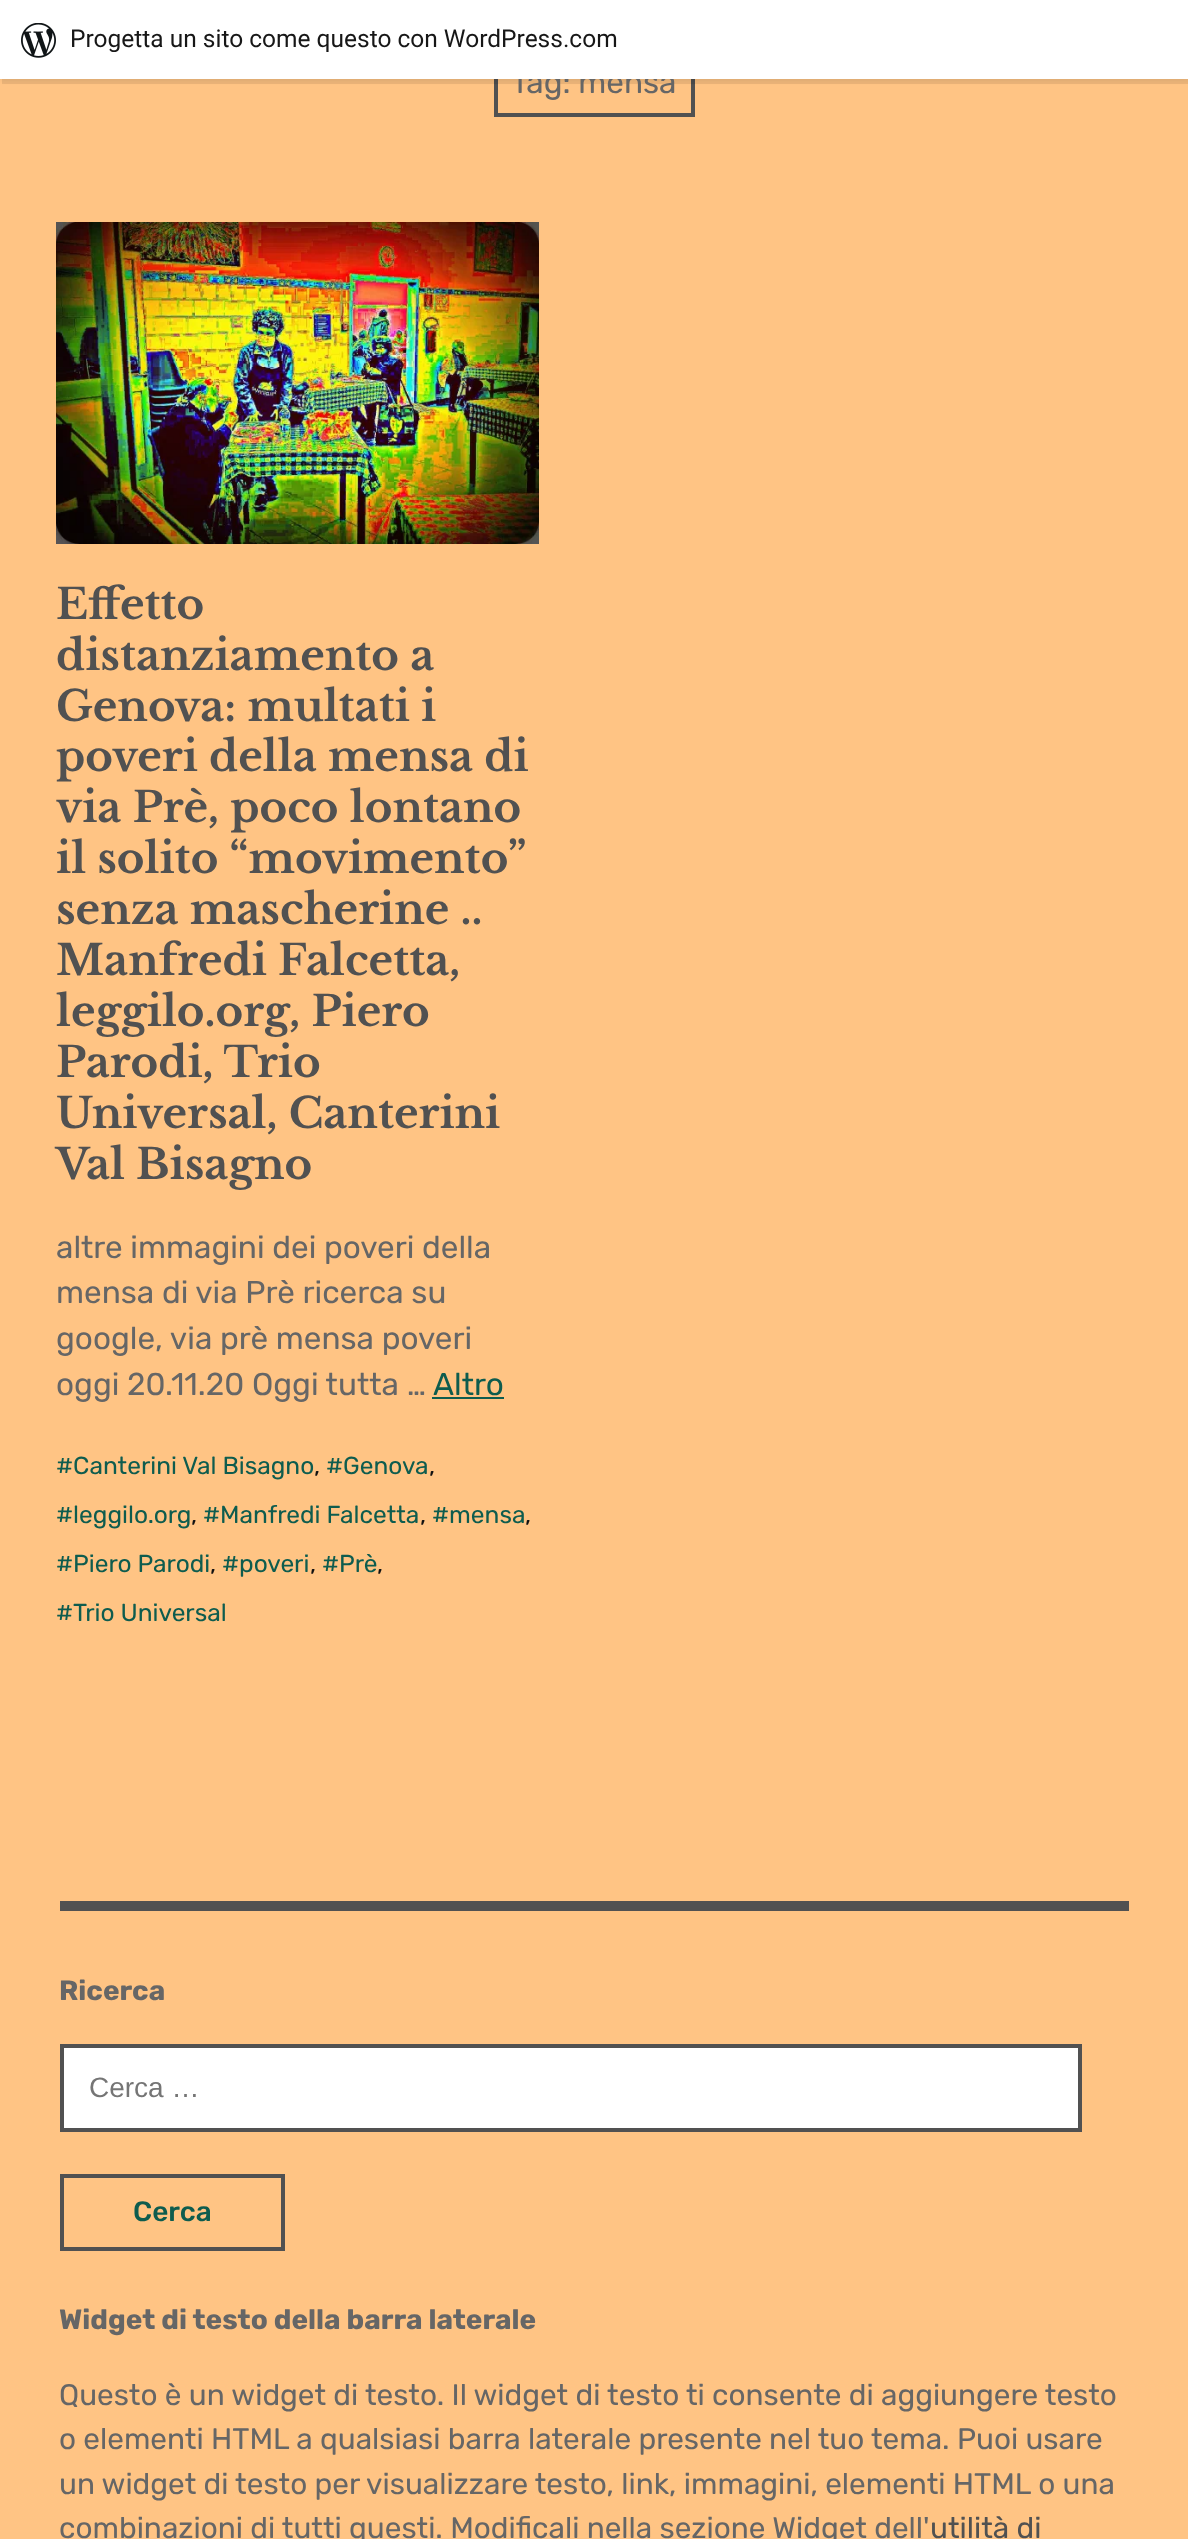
(async () => {
  const canvas = document.querySelector("canvas");
  canvas.width = 1188;
  canvas.height = 2539;
  const ctx = canvas.getContext("2d");
  ctx.miterLimit = 4;
  ctx.fontKerning = "normal";
  async function loadImage(src) {
    const img = new Image();
    img.src = src;
    await img.decode();
    return img;
  }
  let path;

  ctx.fillStyle = "#ffc484";
  ctx.fillRect(0, 0, 1188, 2539);
  ctx.strokeStyle = "#515151";
  ctx.lineWidth = 4;
  ctx.strokeRect(496, 51, 197, 64);
  ctx.fillStyle = "rgba(0, 0, 0, 0.05)";
  ctx.filter = "blur(2px)";
  ctx.beginPath();
  ctx.rect(0, 2, 1188, 79);
  ctx.fill();
  ctx.filter = "none";
  ctx.fillStyle = "rgba(0, 0, 0, 0.08)";
  path = new Path2D("M2 79V84H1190V5H1188V79Z");
  ctx.fill(path);
  ctx.drawImage(await loadImage("img/2.png"), 56, 222, 483, 322);
  ctx.fillStyle = "#0e5c4e";
  ctx.fillRect(432, 1397, 72, 2);
  ctx.fillStyle = "#515151";
  ctx.fillRect(60, 1901, 1069, 10);
  ctx.fillStyle = "#ffffff";
  ctx.beginPath();
  ctx.rect(62, 2046, 1018, 84);
  ctx.fill();
  ctx.stroke();
  ctx.strokeRect(62, 2176, 221, 73);
  ctx.font = "31.5px Rubik";
  ctx.fillStyle = "#666666";
  ctx.fillText("Tag: mensa", 511, 93);
  ctx.fillStyle = "#ffffff";
  ctx.fillRect(0, 0, 1188, 79);
  ctx.drawImage(await loadImage("img/1.png"), 21, 23, 35, 35);
  ctx.font = "24.5px Roboto";
  ctx.fillStyle = "#171717";
  ctx.fillText("Progetta un sito come questo con WordPress.com", 70, 47);
  ctx.font = "bold 42px Libre Baskerville";
  ctx.fillStyle = "#515151";
  for (const [text, x, y] of [
    ["Effetto", 56, 619],
    ["distanziamento a", 56, 670],
    ["Genova: multati i", 56, 721],
    ["poveri della mensa di", 56, 771],
    ["via Prè, poco lontano", 56, 822],
    ["il solito “movimento”", 56, 873],
    ["senza mascherine ..", 56, 924],
    ["Manfredi Falcetta,", 56, 975],
    ["leggilo.org, Piero", 56, 1026],
    ["Parodi, Trio", 56, 1077],
    ["Universal, Canterini", 56, 1128],
    ["Val Bisagno", 56, 1179],
  ]) {
    ctx.fillText(text, x, y);
  }
  ctx.font = "31.5px Rubik";
  ctx.fillStyle = "#666666";
  for (const [text, x, y] of [
    ["altre immagini dei poveri della", 56, 1258],
    ["mensa di via Prè ricerca su", 56, 1303],
    ["google, via prè mensa poveri", 56, 1349],
    ["oggi 20.11.20 Oggi tutta …", 56, 1395],
  ]) {
    ctx.fillText(text, x, y);
  }
  ctx.fillStyle = "#0e5c4e";
  ctx.fillText("Altro", 433, 1395);
  ctx.font = "24.5px Rubik";
  ctx.fillText("#Canterini Val Bisagno", 56, 1474);
  ctx.fillStyle = "#111111";
  ctx.fillText(",", 314, 1474);
  ctx.fillStyle = "#0e5c4e";
  ctx.fillText("#Genova", 326, 1474);
  ctx.fillStyle = "#111111";
  ctx.fillText(",", 429, 1474);
  ctx.fillStyle = "#0e5c4e";
  ctx.fillText("#leggilo.org", 56, 1523);
  ctx.fillStyle = "#111111";
  ctx.fillText(",", 191, 1523);
  ctx.fillStyle = "#0e5c4e";
  ctx.fillText("#Manfredi Falcetta", 203, 1523);
  ctx.fillStyle = "#111111";
  ctx.fillText(",", 420, 1523);
  ctx.fillStyle = "#0e5c4e";
  ctx.fillText("#mensa", 432, 1523);
  ctx.fillStyle = "#111111";
  ctx.fillText(",", 525, 1523);
  ctx.fillStyle = "#0e5c4e";
  ctx.fillText("#Piero Parodi", 56, 1572);
  ctx.fillStyle = "#111111";
  ctx.fillText(",", 210, 1572);
  ctx.fillStyle = "#0e5c4e";
  ctx.fillText("#poveri", 222, 1572);
  ctx.fillStyle = "#111111";
  ctx.fillText(",", 310, 1572);
  ctx.fillStyle = "#0e5c4e";
  ctx.fillText("#Prè", 322, 1572);
  ctx.fillStyle = "#111111";
  ctx.fillText(",", 377, 1572);
  ctx.fillStyle = "#0e5c4e";
  ctx.fillText("#Trio Universal", 56, 1621);
  ctx.font = "bold 28px Rubik";
  ctx.fillStyle = "#666666";
  ctx.fillText("Ricerca", 59, 2000);
  ctx.font = "28px Liberation Sans";
  ctx.fillStyle = "#757575";
  ctx.fillText("Cerca …", 89, 2097);
  ctx.font = "500 28px Rubik";
  ctx.fillStyle = "#0e5c4e";
  ctx.fillText("Cerca", 133, 2221);
  ctx.font = "bold 28px Rubik";
  ctx.fillStyle = "#666666";
  ctx.fillText("Widget di testo della barra laterale", 59, 2329);
  ctx.font = "29.75px Rubik";
  for (const [text, x, y] of [
    ["Questo è un widget di testo. Il widget di testo ti consente di aggiungere testo", 59, 2405],
    ["o elementi HTML a qualsiasi barra laterale presente nel tuo tema. Puoi usare", 59, 2449],
    ["un widget di testo per visualizzare testo, link, immagini, elementi HTML o una", 59, 2494],
    ["combinazioni di tutti questi. Modificali nella sezione Widget dell'", 59, 2538],
  ]) {
    ctx.fillText(text, x, y);
  }
  ctx.fillStyle = "#515151";
  ctx.fillText("utilità di", 930, 2538);
})();
